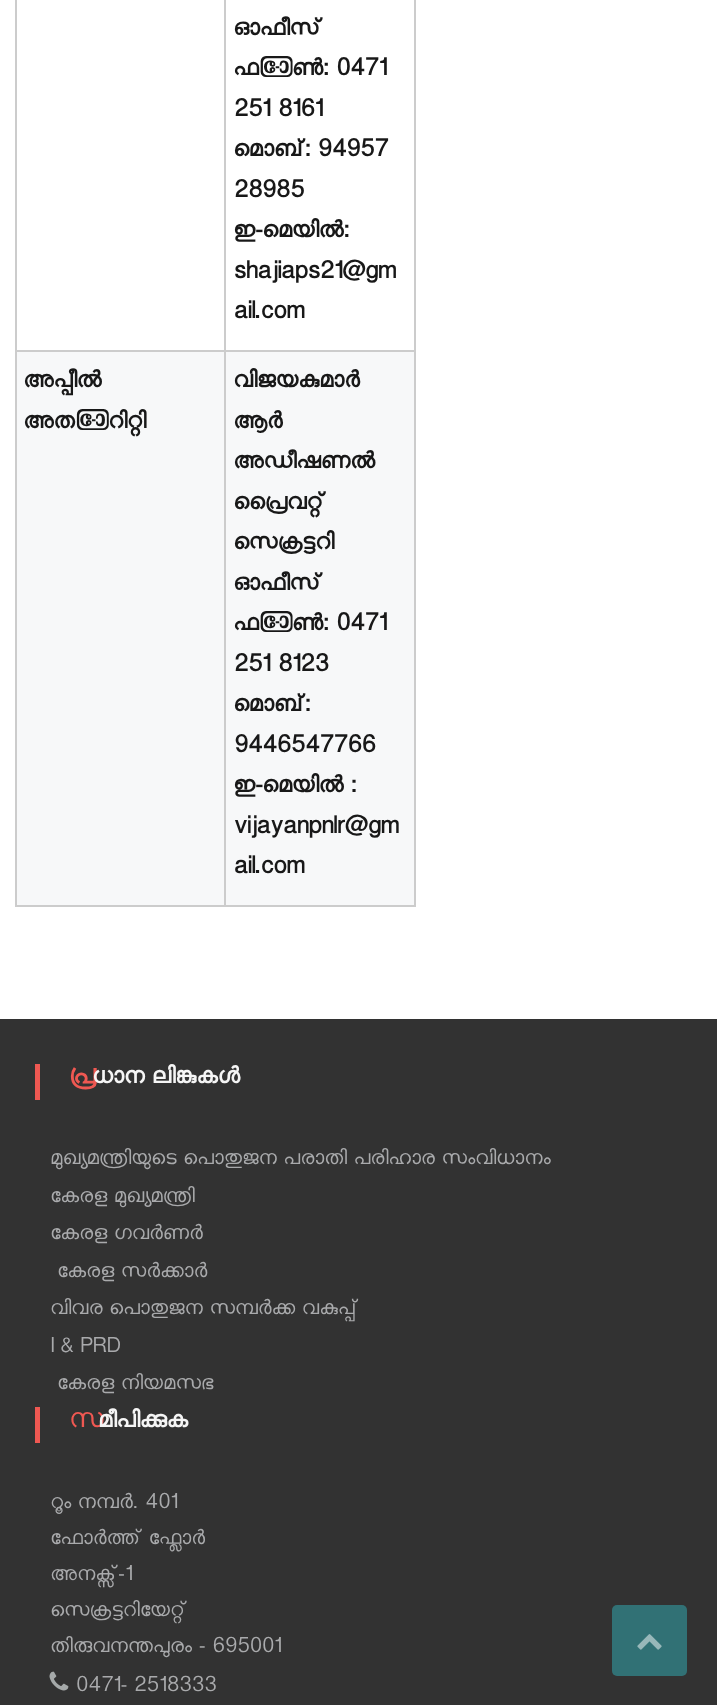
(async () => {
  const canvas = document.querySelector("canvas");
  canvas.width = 717;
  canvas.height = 1705;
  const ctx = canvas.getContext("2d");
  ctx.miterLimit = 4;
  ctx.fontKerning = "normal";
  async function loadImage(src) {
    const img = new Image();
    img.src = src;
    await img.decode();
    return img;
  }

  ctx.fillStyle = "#ffffff";
  ctx.fillRect(0, 0, 717, 1705);
  for (const [x, y, w, h, color] of [
    [224, 350, 192, 2, "#cccccc"],
    [17, 352, 397, 553, "#f7f8f9"],
    [414, 0, 2, 906, "#cccccc"],
    [224, 905, 192, 2, "#cccccc"],
    [224, 350, 2, 556, "#cccccc"],
    [15, 350, 210, 2, "#cccccc"],
    [224, 0, 2, 351, "#cccccc"],
    [15, 905, 210, 2, "#cccccc"],
    [15, 0, 2, 906, "#cccccc"],
    [0, 1019, 717, 686, "#323232"],
    [35, 1064, 5, 36, "#ef5852"],
    [35, 1407, 5, 36, "#ef5852"],
  ]) {
    ctx.fillStyle = color;
    ctx.fillRect(x, y, w, h);
  }
  ctx.drawImage(await loadImage("img/1.png"), 49, 1671, 20, 20);
  ctx.fillStyle = "#317175";
  ctx.beginPath();
  ctx.roundRect(612, 1605, 75, 71, 5);
  ctx.fill();
  ctx.drawImage(await loadImage("img/2.png"), 637, 1634, 25, 16);
  ctx.font = "bold 27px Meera";
  ctx.fillStyle = "#181818";
  for (const [text, x, y] of [
    ["ഓഫീസ്", 233, 35],
    ["ഫോൺ: 0471", 233, 75],
    ["251 8161", 233, 116],
    ["മൊബ്: 94957", 233, 156],
    ["28985", 233, 197],
    ["ഇ-മെയിൽ:", 233, 237],
    ["shajiaps21@gm", 233, 278],
    ["ail.com", 233, 318],
    ["അപ്പീൽ", 23, 387],
    ["അതോറിറ്റി", 23, 428],
    ["വിജയകുമാർ", 233, 387],
    ["ആർ", 233, 428],
    ["അഡീഷണൽ", 233, 468],
    ["പ്രൈവറ്റ്", 233, 509],
    ["സെക്രട്ടറി", 233, 549],
    ["ഓഫീസ്", 233, 590],
    ["ഫോൺ: 0471", 233, 630],
    ["251 8123", 233, 671],
    ["മൊബ്:", 233, 711],
    ["9446547766", 233, 752],
    ["ഇ-മെയിൽ :", 233, 792],
    ["vijayanpnlr@gm", 233, 833],
    ["ail.com", 233, 873],
  ]) {
    ctx.fillText(text, x, y);
  }
  ctx.font = "900 27px Noto Sans";
  ctx.fillStyle = "#ef5852";
  ctx.fillText("പ്ര", 69, 1083);
  ctx.font = "bold 27px Meera";
  ctx.fillStyle = "#f5f5f5";
  ctx.fillText("ധാന ലിങ്കുകള്‍", 92, 1083);
  ctx.font = "24px Meera";
  ctx.fillStyle = "#a9aaac";
  for (const [text, x, y] of [
    ["മുഖ്യമന്ത്രിയുടെ പൊതുജന പരാതി പരിഹാര സംവിധാനം", 50, 1164],
    ["കേരള മുഖ്യമന്ത്രി", 50, 1202],
    ["കേരള ഗവര്‍ണര്‍", 50, 1239],
    ["കേരള സര്‍ക്കാര്‍", 57, 1277],
    ["വിവര പൊതുജന സമ്പര്‍ക്ക വകുപ്പ്", 50, 1314],
    ["I & PRD", 50, 1352],
    ["കേരള നിയമസഭ", 57, 1389],
  ]) {
    ctx.fillText(text, x, y);
  }
  ctx.font = "100 27px Noto Sans";
  ctx.fillStyle = "#ef5852";
  ctx.fillText("സ", 69, 1427);
  ctx.font = "bold 27px Meera";
  ctx.fillStyle = "#f5f5f5";
  ctx.fillText("മീപിക്കുക", 98, 1427);
  ctx.font = "24px Meera";
  ctx.fillStyle = "#a9aaac";
  for (const [text, x, y] of [
    ["റൂം നമ്പർ. 401", 50, 1508],
    ["ഫോർത്ത് ഫ്ലോർ", 50, 1544],
    ["അനക്സ്-1", 50, 1580],
    ["സെക്രട്ടറിയേറ്റ്", 50, 1616],
    ["തിരുവനന്തപുരം - 695001", 50, 1652],
    ["0471- 2518333", 75, 1691],
  ]) {
    ctx.fillText(text, x, y);
  }
})();
